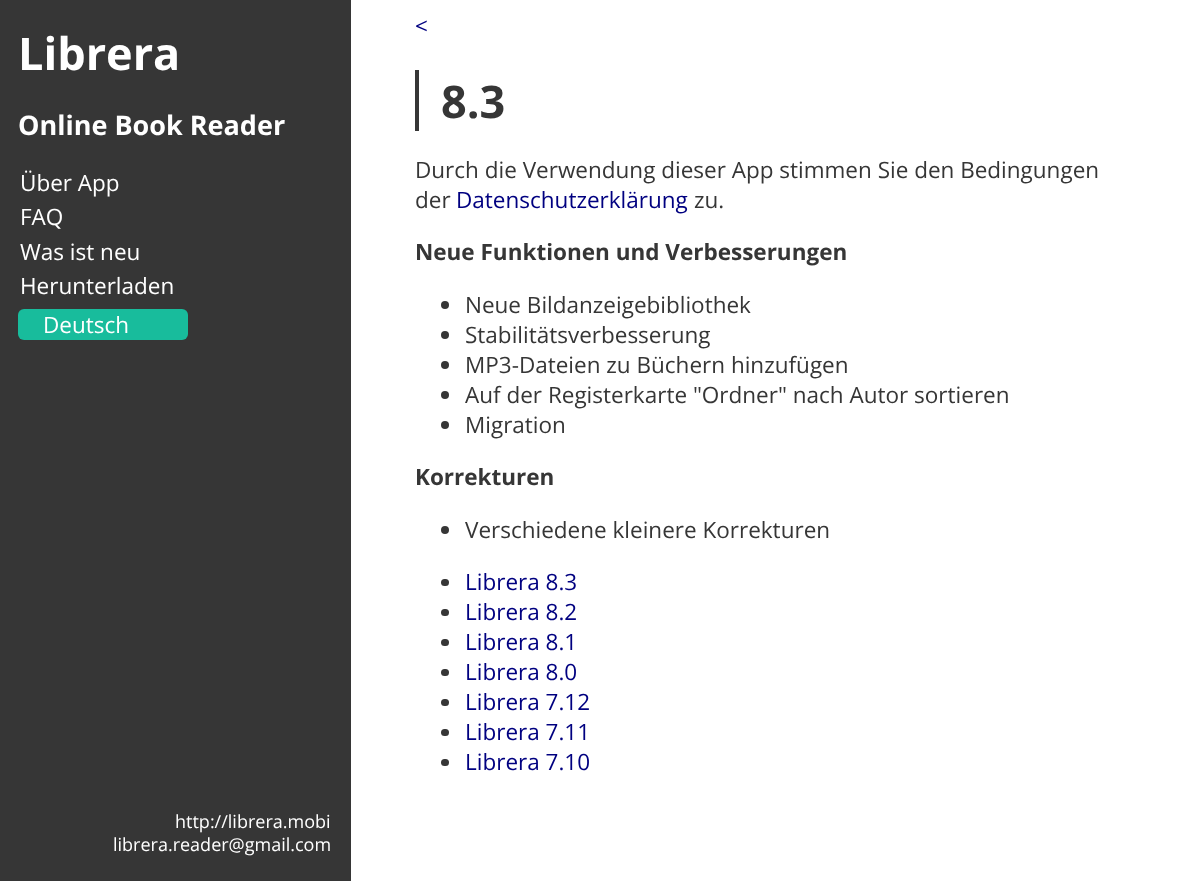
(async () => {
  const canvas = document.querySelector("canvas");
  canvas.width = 1187;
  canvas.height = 881;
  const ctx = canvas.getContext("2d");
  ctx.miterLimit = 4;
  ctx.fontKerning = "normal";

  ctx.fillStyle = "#ffffff";
  ctx.fillRect(0, 0, 1187, 881);
  ctx.fillStyle = "#363636";
  ctx.fillRect(0, 0, 351, 881);
  ctx.fillStyle = "#18bc9c";
  ctx.beginPath();
  ctx.roundRect(18, 309, 170, 31, 6);
  ctx.fill();
  ctx.fillStyle = "#363636";
  ctx.fillRect(415, 70, 4, 61);
  ctx.beginPath();
  ctx.arc(445, 305, 4, 0, Math.PI * 2);
  ctx.fill();
  ctx.beginPath();
  ctx.arc(445, 335, 4, 0, Math.PI * 2);
  ctx.fill();
  ctx.beginPath();
  ctx.arc(445, 365, 4, 0, Math.PI * 2);
  ctx.fill();
  ctx.beginPath();
  ctx.arc(445, 395, 4, 0, Math.PI * 2);
  ctx.fill();
  ctx.beginPath();
  ctx.arc(445, 425, 4, 0, Math.PI * 2);
  ctx.fill();
  ctx.beginPath();
  ctx.arc(445, 530, 4, 0, Math.PI * 2);
  ctx.fill();
  ctx.beginPath();
  ctx.roundRect(441, 579, 8, 7, 3.5);
  ctx.fill();
  ctx.beginPath();
  ctx.roundRect(441, 609, 8, 7, 3.5);
  ctx.fill();
  ctx.beginPath();
  ctx.roundRect(441, 639, 8, 7, 3.5);
  ctx.fill();
  ctx.beginPath();
  ctx.roundRect(441, 669, 8, 7, 3.5);
  ctx.fill();
  ctx.beginPath();
  ctx.roundRect(441, 699, 8, 7, 3.5);
  ctx.fill();
  ctx.beginPath();
  ctx.roundRect(441, 729, 8, 7, 3.5);
  ctx.fill();
  ctx.beginPath();
  ctx.roundRect(441, 759, 8, 7, 3.5);
  ctx.fill();
  ctx.font = "bold 45px Open Sans";
  ctx.fillStyle = "#ffffff";
  ctx.fillText("Librera", 18, 70);
  ctx.font = "bold 27px Open Sans";
  ctx.fillText("Online Book Reader", 18, 135);
  ctx.font = "22.5px Open Sans";
  for (const [text, x, y] of [
    ["Über App", 20, 191],
    ["FAQ", 20, 225],
    ["Was ist neu", 20, 260],
    ["Herunterladen", 20, 294],
    ["Deutsch", 43, 333],
  ]) {
    ctx.fillText(text, x, y);
  }
  ctx.font = "18px Open Sans";
  ctx.fillText("http://librera.mobi", 175, 828);
  ctx.fillText("librera.reader@gmail.com", 113, 851);
  ctx.font = "22.5px Open Sans";
  ctx.fillStyle = "#000080";
  ctx.fillText("<", 415, 34);
  ctx.font = "bold 45px Open Sans";
  ctx.fillStyle = "#363636";
  ctx.fillText("8.3", 441, 118);
  ctx.font = "22.5px Open Sans";
  ctx.fillText("Durch die Verwendung dieser App stimmen Sie den Bedingungen", 415, 178);
  ctx.fillText("der", 415, 208);
  ctx.fillStyle = "#000080";
  ctx.fillText("Datenschutzerklärung", 456, 208);
  ctx.fillStyle = "#363636";
  ctx.fillText("zu.", 694, 208);
  ctx.font = "bold 22.5px Open Sans";
  ctx.fillText("Neue Funktionen und Verbesserungen", 415, 260);
  ctx.font = "22.5px Open Sans";
  for (const [text, x, y] of [
    ["Neue Bildanzeigebibliothek", 465, 313],
    ["Stabilitätsverbesserung", 465, 343],
    ["MP3-Dateien zu Büchern hinzufügen", 465, 373],
    ["Auf der Registerkarte \"Ordner\" nach Autor sortieren", 465, 403],
    ["Migration", 465, 433],
  ]) {
    ctx.fillText(text, x, y);
  }
  ctx.font = "bold 22.5px Open Sans";
  ctx.fillText("Korrekturen", 415, 485);
  ctx.font = "22.5px Open Sans";
  ctx.fillText("Verschiedene kleinere Korrekturen", 465, 538);
  ctx.fillStyle = "#000080";
  for (const [text, x, y] of [
    ["Librera 8.3", 465, 590],
    ["Librera 8.2", 465, 620],
    ["Librera 8.1", 465, 650],
    ["Librera 8.0", 465, 680],
    ["Librera 7.12", 465, 710],
    ["Librera 7.11", 465, 740],
    ["Librera 7.10", 465, 770],
  ]) {
    ctx.fillText(text, x, y);
  }
})();
